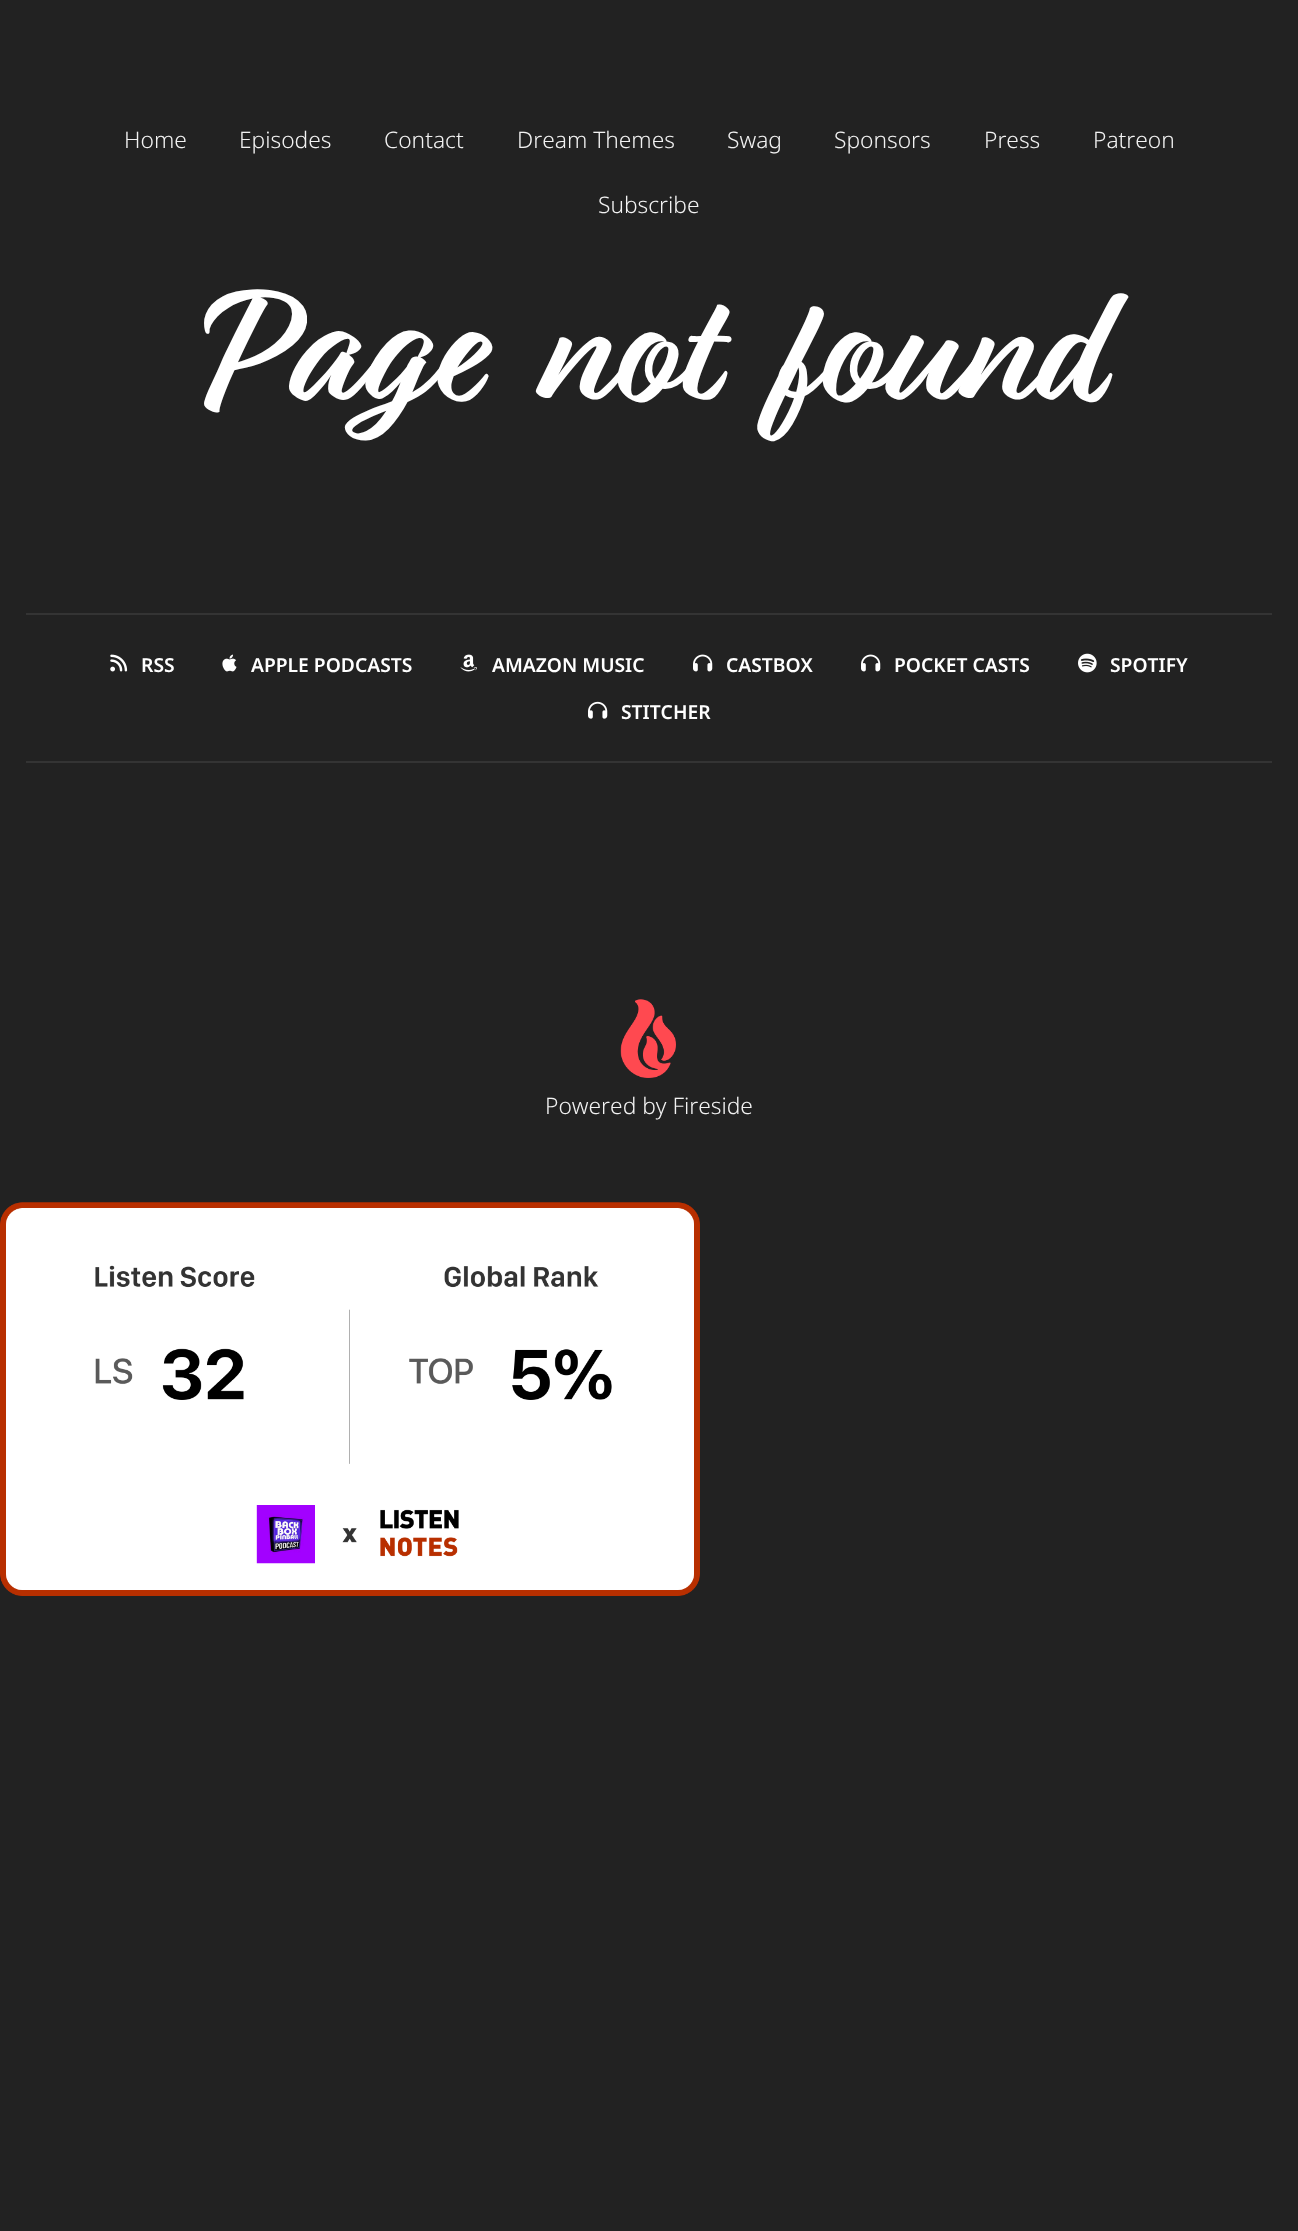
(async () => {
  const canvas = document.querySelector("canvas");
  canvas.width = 1298;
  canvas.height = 2231;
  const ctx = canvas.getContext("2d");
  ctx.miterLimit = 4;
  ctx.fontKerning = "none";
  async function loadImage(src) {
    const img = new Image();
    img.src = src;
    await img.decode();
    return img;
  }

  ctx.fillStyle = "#222222";
  ctx.fillRect(0, 0, 1298, 2231);
  ctx.fillStyle = "#343434";
  ctx.fillRect(26, 613, 1246, 2);
  ctx.fillRect(26, 761, 1246, 2);
  ctx.drawImage(await loadImage("img/1.png"), 110, 654, 18, 18);
  ctx.drawImage(await loadImage("img/2.png"), 222, 654, 15, 18);
  ctx.drawImage(await loadImage("img/3.png"), 460, 654, 17, 18);
  ctx.drawImage(await loadImage("img/4.png"), 693, 654, 20, 18);
  ctx.drawImage(await loadImage("img/4.png"), 861, 654, 20, 18);
  ctx.drawImage(await loadImage("img/5.png"), 1078, 653, 19, 20);
  ctx.drawImage(await loadImage("img/6.png"), 588, 701, 20, 18);
  ctx.drawImage(await loadImage("img/7.png"), 620, 999, 56, 79);
  ctx.drawImage(await loadImage("img/8.png"), 0, 1202, 700, 394);
  ctx.font = "300 22.75px Noto Sans";
  ctx.fillStyle = "#f2f2f2";
  for (const [text, x, y] of [
    ["Home", 124, 148],
    ["Episodes", 239, 148],
    ["Contact", 384, 148],
    ["Dream Themes", 517, 148],
    ["Swag", 727, 148],
    ["Sponsors", 834, 148],
    ["Press", 984, 148],
    ["Patreon", 1093, 148],
    ["Subscribe", 598, 213],
  ]) {
    ctx.fillText(text, x, y);
  }
  ctx.wordSpacing = "4px";
  ctx.font = "bold 168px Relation";
  ctx.fillStyle = "#ffffff";
  ctx.fillText("Page not found", 200, 396);
  ctx.wordSpacing = "0px";
  ctx.font = "600 19.25px Noto Sans";
  for (const [text, x, y] of [
    ["RSS", 141, 672],
    ["APPLE PODCASTS", 251, 672],
    ["AMAZON MUSIC", 492, 672],
    ["CASTBOX", 726, 672],
    ["POCKET CASTS", 894, 672],
    ["SPOTIFY", 1110, 672],
    ["STITCHER", 621, 719],
  ]) {
    ctx.fillText(text, x, y);
  }
  ctx.font = "300 22.75px Noto Sans";
  ctx.fillStyle = "#f2f2f2";
  ctx.fillText("Powered by Fireside", 545, 1114);
})();
